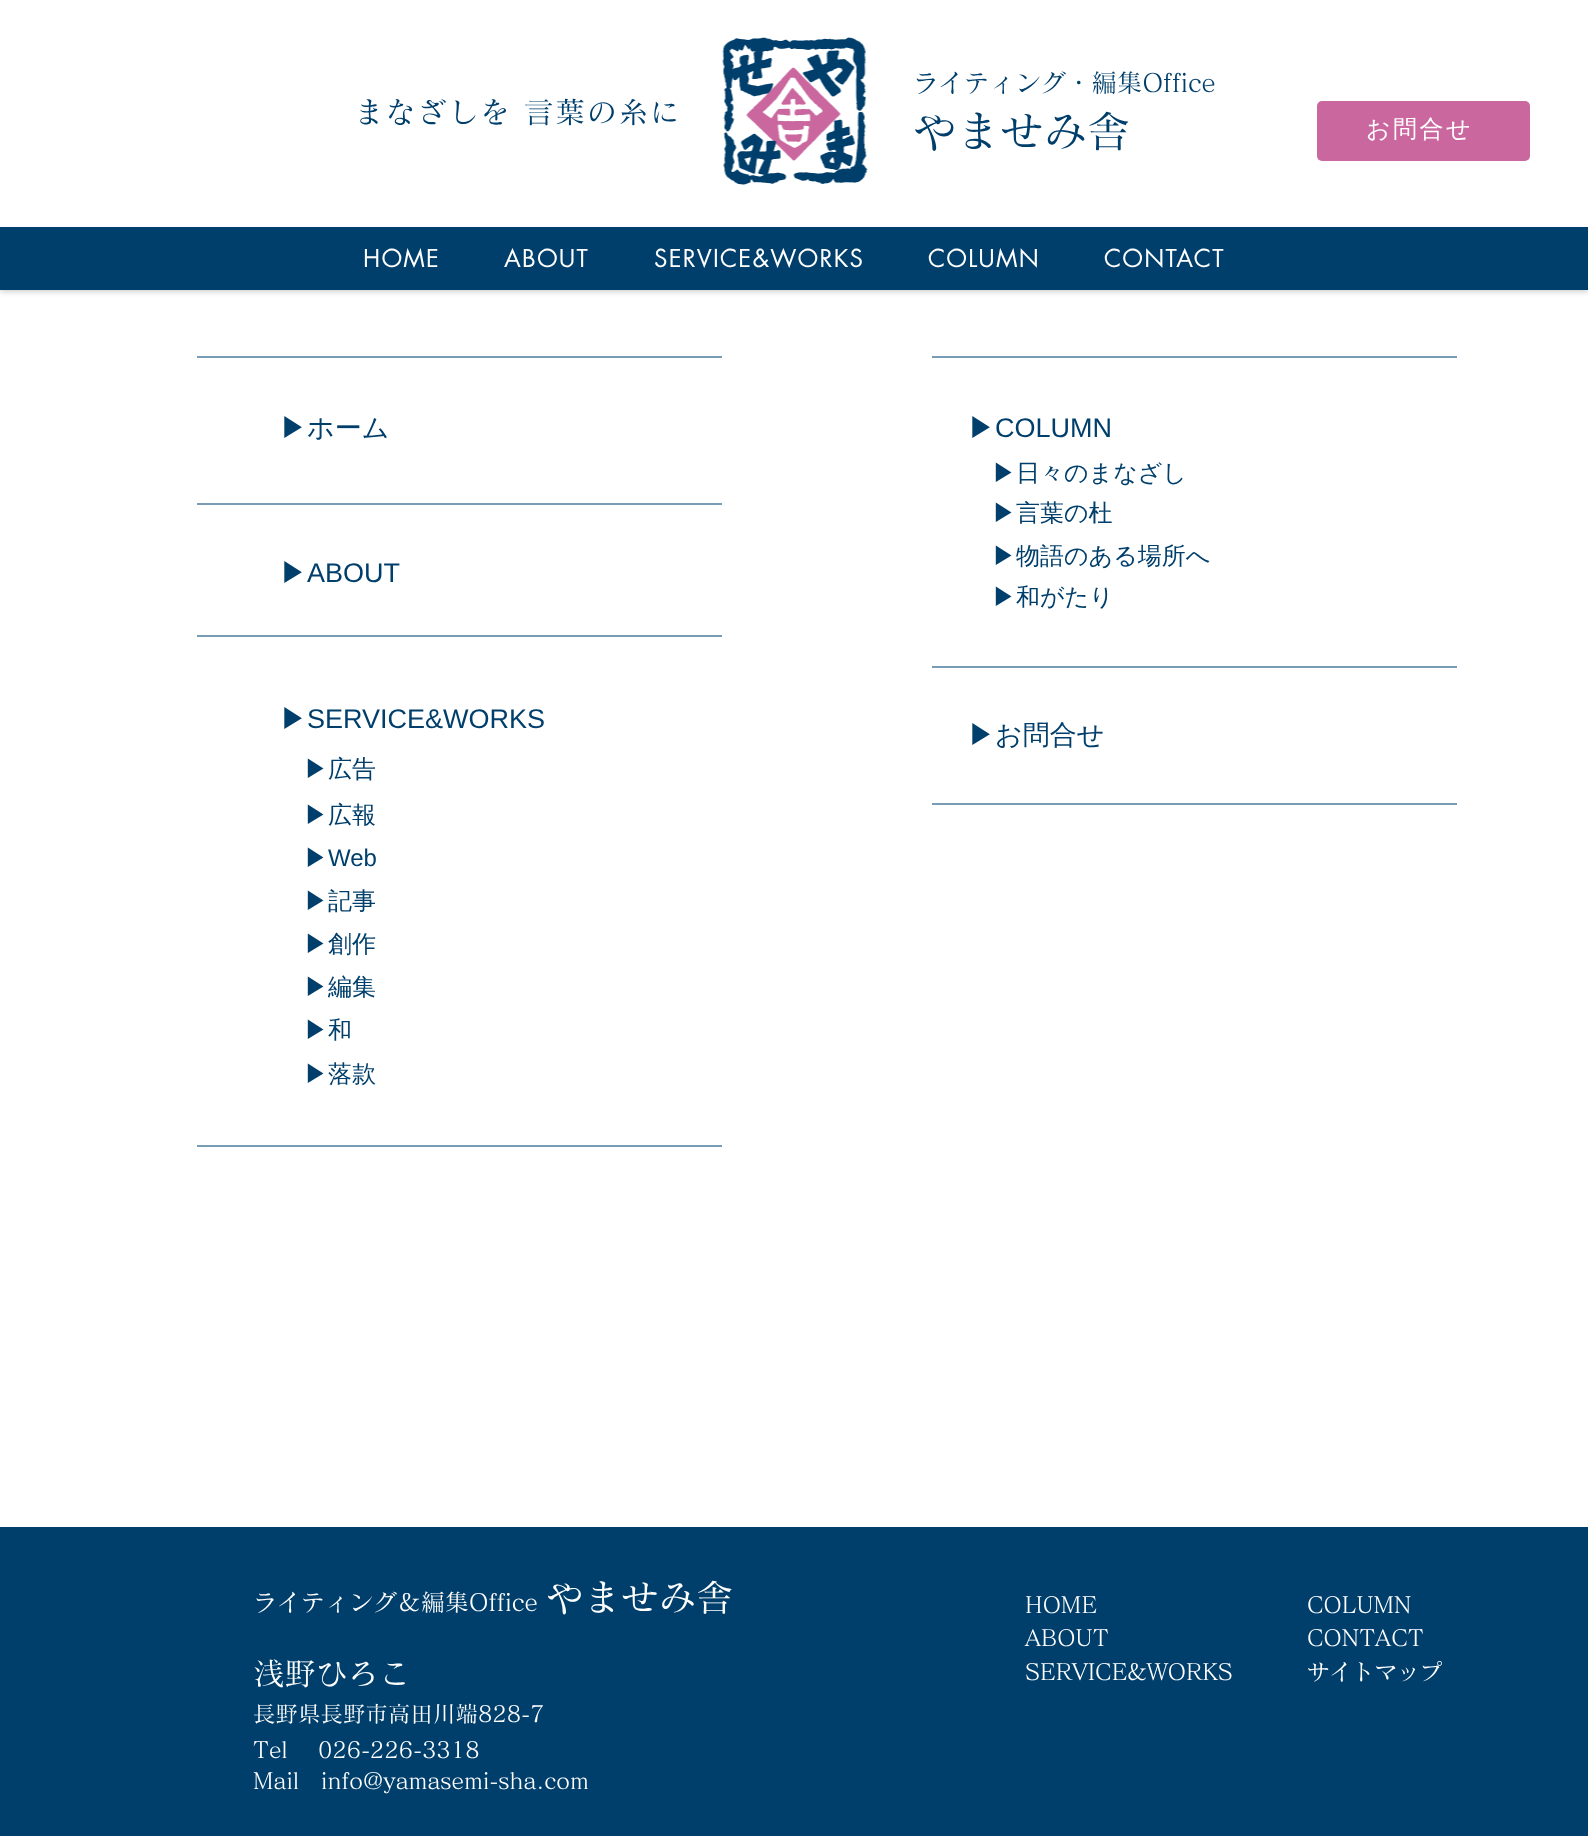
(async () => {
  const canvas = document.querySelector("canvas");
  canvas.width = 1588;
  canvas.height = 1836;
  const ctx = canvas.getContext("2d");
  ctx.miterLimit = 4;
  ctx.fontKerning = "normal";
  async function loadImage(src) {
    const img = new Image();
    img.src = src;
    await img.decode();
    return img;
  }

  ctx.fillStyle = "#ffffff";
  ctx.fillRect(0, 0, 1588, 1836);
  ctx.fillStyle = "rgba(105, 105, 105, 0.4)";
  ctx.filter = "blur(3px)";
  ctx.beginPath();
  ctx.rect(0, 2, 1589, 289);
  ctx.fill();
  ctx.filter = "none";
  ctx.fillStyle = "#ffffff";
  ctx.fillRect(0, 0, 1588, 227);
  ctx.drawImage(await loadImage("img/1.png"), 722, 37, 146, 148);
  ctx.fillStyle = "#cb679f";
  ctx.beginPath();
  ctx.roundRect(1317, 101, 213, 60, 5);
  ctx.fill();
  for (const [x, y, w, h, color] of [
    [0, 227, 1588, 63, "#003f6b"],
    [197, 356, 525, 2, "#799cb5"],
    [932, 356, 525, 2, "#799cb5"],
    [197, 503, 525, 2, "#799cb5"],
    [197, 635, 525, 2, "#799cb5"],
    [932, 666, 525, 2, "#799cb5"],
    [932, 803, 525, 2, "#799cb5"],
    [197, 1145, 525, 2, "#799cb5"],
    [0, 1527, 1588, 309, "#003f6b"],
  ]) {
    ctx.fillStyle = color;
    ctx.fillRect(x, y, w, h);
  }
  ctx.font = "500 25.5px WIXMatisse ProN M";
  ctx.fillText("ライティング・編集Office", 913, 92);
  ctx.letterSpacing = "1.5px";
  ctx.font = "500 30px WIXMatisse ProN M";
  ctx.fillText("まなざしを 言葉の糸に", 354, 123);
  ctx.letterSpacing = "0px";
  ctx.font = "500 43.5px WIXMatisse ProN M";
  ctx.fillText("やませみ舎", 913, 147);
  ctx.letterSpacing = "2.5px";
  ctx.font = "500 24px WenQuanYi Zen Hei";
  ctx.fillStyle = "#ffffff";
  ctx.fillText("お問合せ", 1366, 137);
  ctx.letterSpacing = "1.25px";
  ctx.font = "24px futura";
  for (const [text, x, y] of [
    ["HOME", 363, 267],
    ["ABOUT", 504, 267],
    ["SERVICE&WORKS", 654, 267],
    ["COLUMN", 928, 267],
    ["CONTACT", 1104, 267],
  ]) {
    ctx.fillText(text, x, y);
  }
  ctx.letterSpacing = "0px";
  ctx.font = "500 27px WenQuanYi Zen Hei";
  ctx.fillStyle = "#003f6b";
  ctx.fillText("▶︎ホーム", 280, 437);
  ctx.fillText("▶︎", 280, 582);
  ctx.font = "27px Liberation Sans";
  ctx.fillText("ABOUT", 307, 582);
  ctx.font = "500 27px WenQuanYi Zen Hei";
  ctx.fillText("▶︎", 280, 728);
  ctx.font = "27px Liberation Sans";
  ctx.fillText("SERVICE&WORKS", 307, 728);
  ctx.font = "500 24px WenQuanYi Zen Hei";
  for (const [text, x, y] of [
    ["▶︎広告", 304, 777],
    ["▶︎広報", 304, 823],
    ["▶︎", 304, 866],
  ]) {
    ctx.fillText(text, x, y);
  }
  ctx.font = "24px Liberation Sans";
  ctx.fillText("Web", 328, 866);
  ctx.font = "500 24px WenQuanYi Zen Hei";
  for (const [text, x, y] of [
    ["▶︎記事", 304, 909],
    ["▶︎創作", 304, 952],
    ["▶︎編集", 304, 995],
    ["▶︎和", 304, 1038],
    ["▶︎落款", 304, 1082],
  ]) {
    ctx.fillText(text, x, y);
  }
  ctx.font = "500 27px WenQuanYi Zen Hei";
  ctx.fillText("▶︎", 968, 437);
  ctx.font = "27px Liberation Sans";
  ctx.fillText("COLUMN", 995, 437);
  ctx.font = "500 24px WenQuanYi Zen Hei";
  for (const [text, x, y] of [
    ["▶︎日々のまなざし", 992, 481],
    ["▶︎言葉の杜", 992, 521],
    ["▶︎物語のある場所へ", 992, 564],
    ["▶︎和がたり", 992, 605],
  ]) {
    ctx.fillText(text, x, y);
  }
  ctx.font = "500 27px WenQuanYi Zen Hei";
  ctx.fillText("▶︎お問合せ", 968, 744);
  ctx.font = "500 24px WIXMatisse ProN M";
  ctx.fillStyle = "#ffffff";
  ctx.fillText("ライティング＆編集Office", 253, 1611);
  ctx.font = "500 37.5px WIXMatisse ProN M";
  ctx.fillText("やませみ舎", 546, 1611);
  ctx.font = "500 22.5px WIXMatisse ProN M";
  for (const [text, x, y] of [
    ["HOME", 1025, 1613],
    ["ABOUT", 1025, 1646],
    ["SERVICE&WORKS", 1025, 1680],
    ["COLUMN", 1307, 1613],
    ["CONTACT", 1307, 1646],
    ["サイトマップ", 1307, 1680],
  ]) {
    ctx.fillText(text, x, y);
  }
  ctx.font = "500 31.5px WIXMatisse ProN M";
  ctx.fillText("浅野ひろこ", 253, 1685);
  ctx.font = "500 22.5px WIXMatisse ProN M";
  for (const [text, x, y] of [
    ["長野県長野市高田川端828-7", 253, 1722],
    ["Tel", 253, 1758],
    ["026-226-3318", 318, 1758],
    ["Mail", 253, 1789],
    ["info@yamasemi-sha.com", 321, 1789],
  ]) {
    ctx.fillText(text, x, y);
  }
})();
